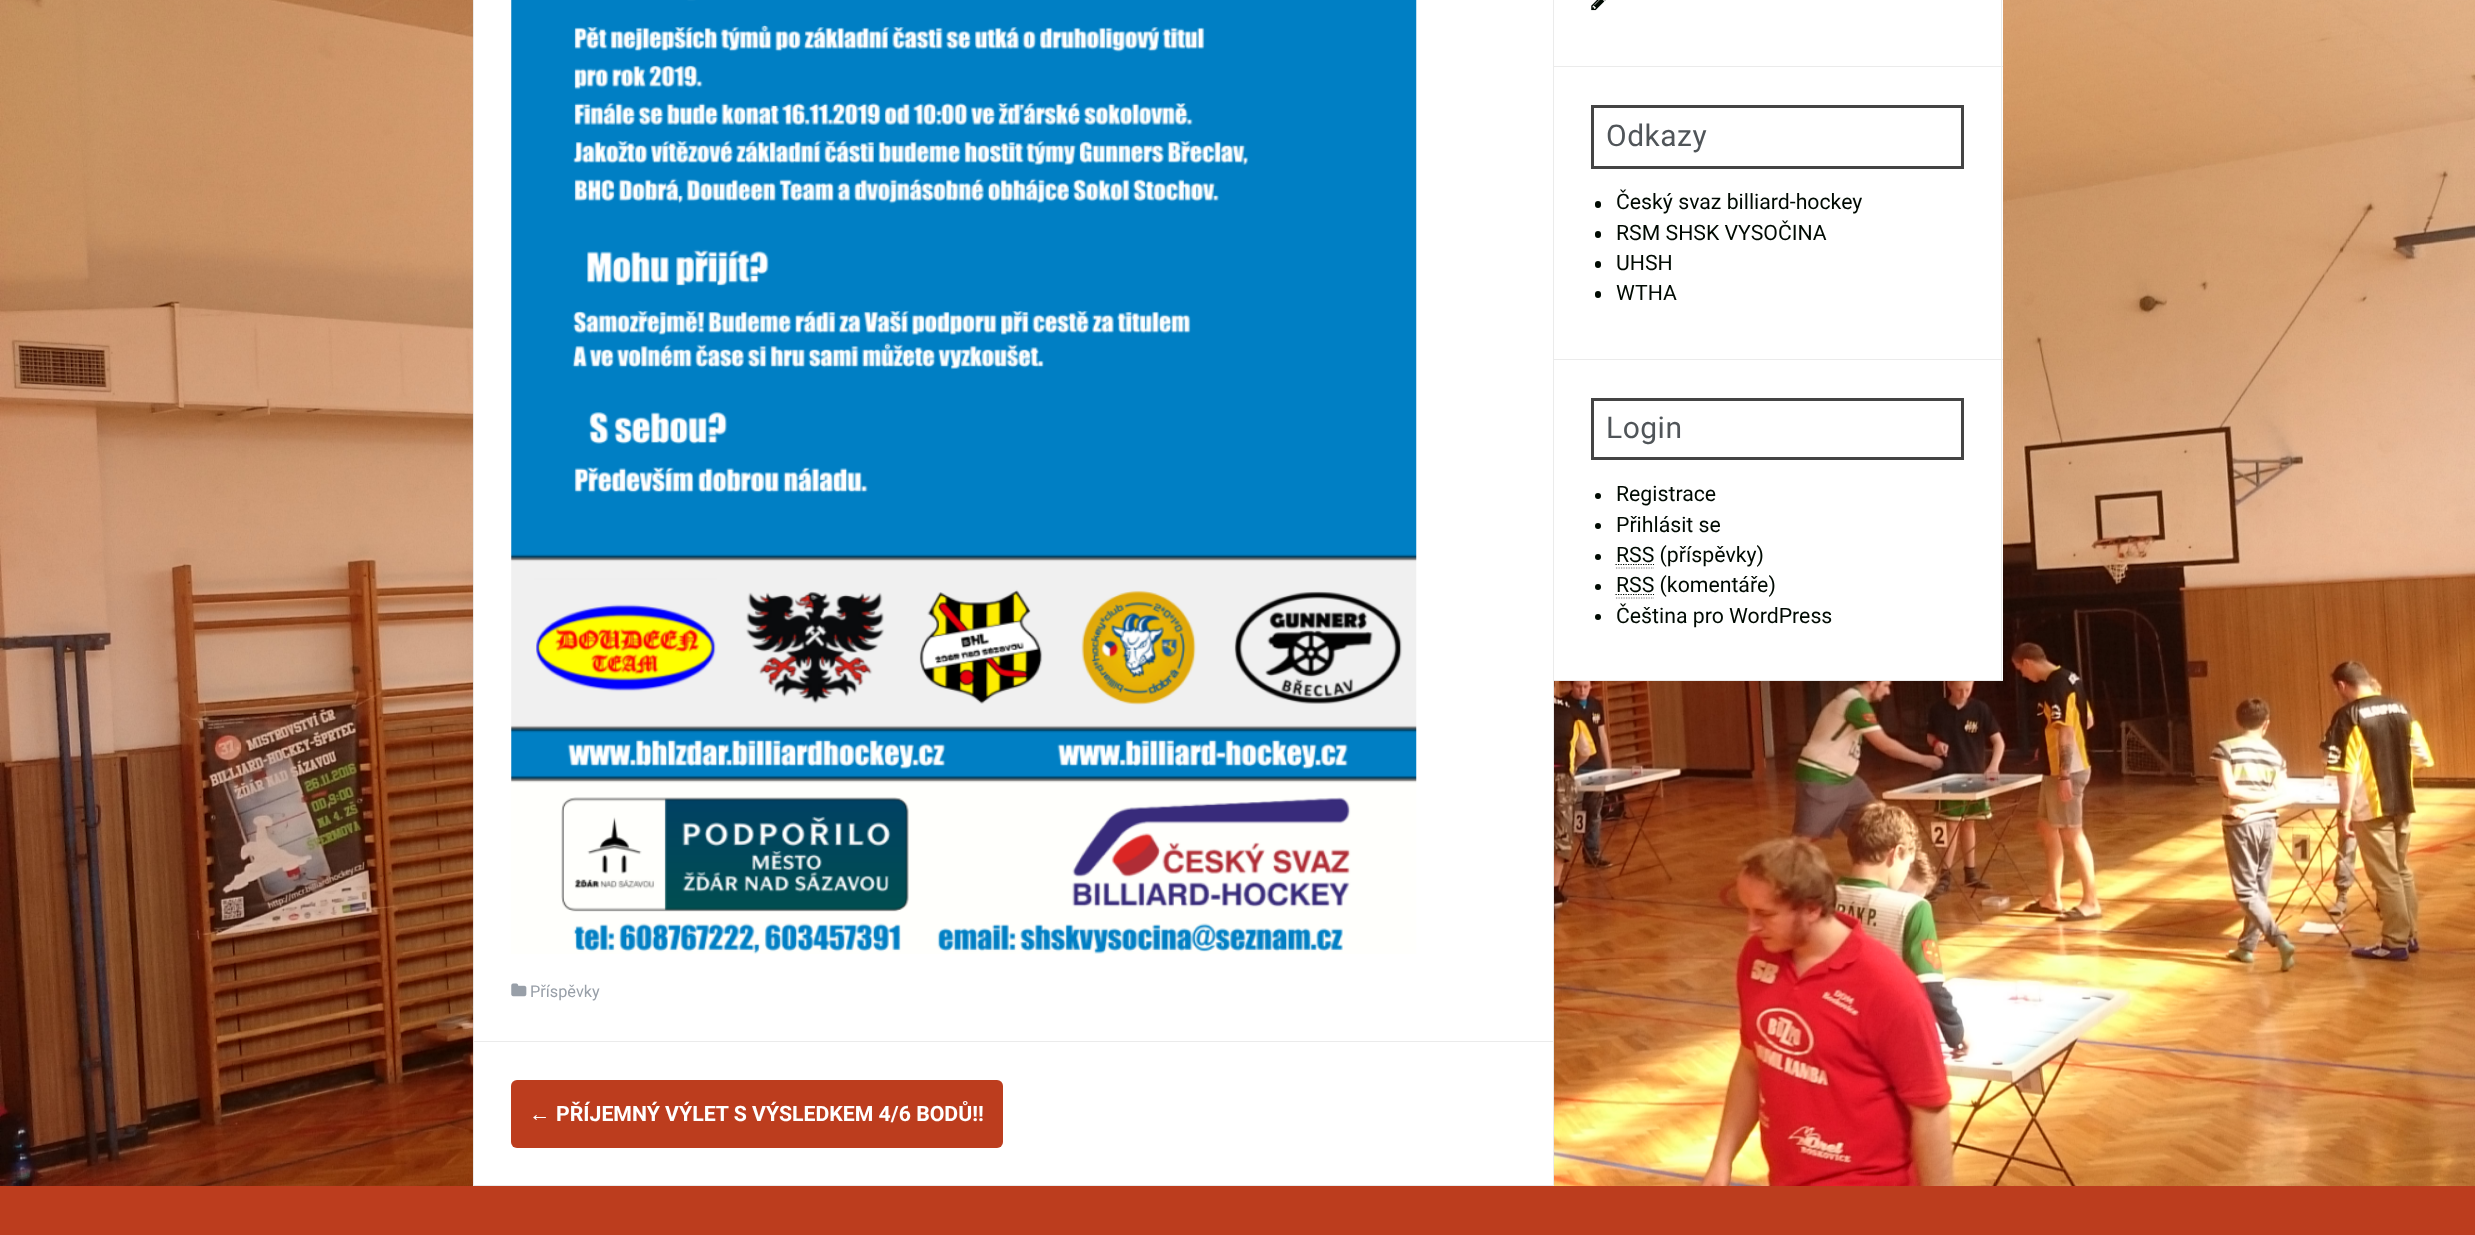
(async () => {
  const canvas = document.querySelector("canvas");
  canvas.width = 2475;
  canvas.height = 1235;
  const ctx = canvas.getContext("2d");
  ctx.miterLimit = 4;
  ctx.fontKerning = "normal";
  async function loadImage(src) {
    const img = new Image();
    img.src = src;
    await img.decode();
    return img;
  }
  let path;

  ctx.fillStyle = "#ffffff";
  ctx.fillRect(0, 0, 2475, 1235);
  ctx.drawImage(await loadImage("img/1.png"), 0, 0, 2475, 1186);
  for (const [x, y, w, h, color] of [
    [1554, 0, 449, 359, "#ffffff"],
    [2001, 0, 1, 360, "#ebebeb"],
    [1553, 66, 450, 1, "#ebebeb"],
    [1553, 0, 1, 68, "#ebebeb"],
  ]) {
    ctx.fillStyle = color;
    ctx.fillRect(x, y, w, h);
  }
  ctx.drawImage(await loadImage("img/2.png"), 1591, 0, 15, 11);
  ctx.fillRect(1553, 359, 450, 1);
  ctx.fillRect(1553, 68, 1, 292);
  ctx.strokeStyle = "#444444";
  ctx.lineWidth = 3;
  ctx.strokeRect(1592.5, 106.5, 370, 61);
  ctx.fillStyle = "#000a02";
  ctx.beginPath();
  ctx.roundRect(1595, 201, 6, 7, 3);
  ctx.fill();
  ctx.beginPath();
  ctx.roundRect(1595, 231, 6, 7, 3);
  ctx.fill();
  ctx.beginPath();
  ctx.roundRect(1595, 261, 6, 7, 3);
  ctx.fill();
  ctx.beginPath();
  ctx.roundRect(1595, 291, 6, 7, 3);
  ctx.fill();
  for (const [x, y, w, h, color] of [
    [1554, 360, 449, 320, "#ffffff"],
    [2001, 360, 1, 321, "#ebebeb"],
    [1553, 680, 450, 1, "#ebebeb"],
    [1553, 360, 1, 321, "#ebebeb"],
  ]) {
    ctx.fillStyle = color;
    ctx.fillRect(x, y, w, h);
  }
  ctx.strokeRect(1592.5, 399.5, 370, 59);
  ctx.fillStyle = "#000a02";
  ctx.beginPath();
  ctx.arc(1598, 496, 3, 0, Math.PI * 2);
  ctx.fill();
  ctx.beginPath();
  ctx.arc(1598, 526, 3, 0, Math.PI * 2);
  ctx.fill();
  ctx.beginPath();
  ctx.arc(1598, 557, 3, 0, Math.PI * 2);
  ctx.fill();
  path = new Path2D("M1616 568H1654");
  ctx.strokeStyle = "#777777";
  ctx.lineWidth = 1.2;
  ctx.setLineDash([1.25, 1.25]);
  ctx.stroke(path);
  path = new Path2D("M1615.5 564.5H1654");
  ctx.strokeStyle = "#000a02";
  ctx.stroke(path);
  ctx.beginPath();
  ctx.arc(1598, 587, 3, 0, Math.PI * 2);
  ctx.fill();
  path = new Path2D("M1616 598H1654");
  ctx.strokeStyle = "#777777";
  ctx.stroke(path);
  path = new Path2D("M1615.5 594.5H1654");
  ctx.strokeStyle = "#000a02";
  ctx.stroke(path);
  ctx.beginPath();
  ctx.arc(1598, 617, 3, 0, Math.PI * 2);
  ctx.fill();
  for (const [x, y, w, h, color] of [
    [474, 0, 1079, 1185, "#ffffff"],
    [1553, 681, 1, 505, "#ebebeb"],
    [473, 1041, 1081, 1, "#ebebeb"],
    [473, 0, 1, 1043, "#ebebeb"],
  ]) {
    ctx.fillStyle = color;
    ctx.fillRect(x, y, w, h);
  }
  ctx.drawImage(await loadImage("img/3.png"), 511, 0, 906, 954);
  ctx.drawImage(await loadImage("img/4.png"), 511, 983, 16, 14);
  ctx.fillRect(473, 1185, 1081, 1);
  ctx.fillRect(473, 1043, 1, 143);
  ctx.fillStyle = "#bc3d1e";
  ctx.beginPath();
  ctx.roundRect(511, 1080, 492, 68, 6);
  ctx.fill();
  ctx.fillRect(0, 1186, 2475, 49);
  ctx.letterSpacing = "0.5px";
  ctx.font = "30px Roboto";
  ctx.fillStyle = "#505559";
  ctx.fillText("Odkazy", 1606, 146);
  ctx.letterSpacing = "0px";
  ctx.font = "21.25px Roboto";
  ctx.fillStyle = "#000a02";
  for (const [text, x, y] of [
    ["Český svaz billiard-hockey", 1616, 209],
    ["RSM SHSK VYSOČINA", 1616, 240],
    ["UHSH", 1616, 270],
    ["WTHA", 1616, 300],
  ]) {
    ctx.fillText(text, x, y);
  }
  ctx.letterSpacing = "0.5px";
  ctx.font = "30px Roboto";
  ctx.fillStyle = "#505559";
  ctx.fillText("Login", 1606, 438);
  ctx.letterSpacing = "0px";
  ctx.font = "21.25px Roboto";
  ctx.fillStyle = "#000a02";
  for (const [text, x, y] of [
    ["Registrace", 1616, 501],
    ["Přihlásit se", 1616, 532],
    ["RSS (příspěvky)", 1616, 562],
    ["RSS (komentáře)", 1616, 592],
    ["Čeština pro WordPress", 1616, 623],
  ]) {
    ctx.fillText(text, x, y);
  }
  ctx.font = "16.25px Roboto";
  ctx.fillStyle = "#989fa8";
  ctx.fillText("Příspěvky", 530, 997);
  ctx.font = "bold 21.25px Liberation Sans";
  ctx.fillStyle = "#ffffff";
  ctx.fillText("←", 529, 1121);
  ctx.font = "bold 21.25px Roboto";
  ctx.fillText("PŘÍJEMNÝ VÝLET S VÝSLEDKEM 4/6 BODŮ!!", 556, 1121);
})();
